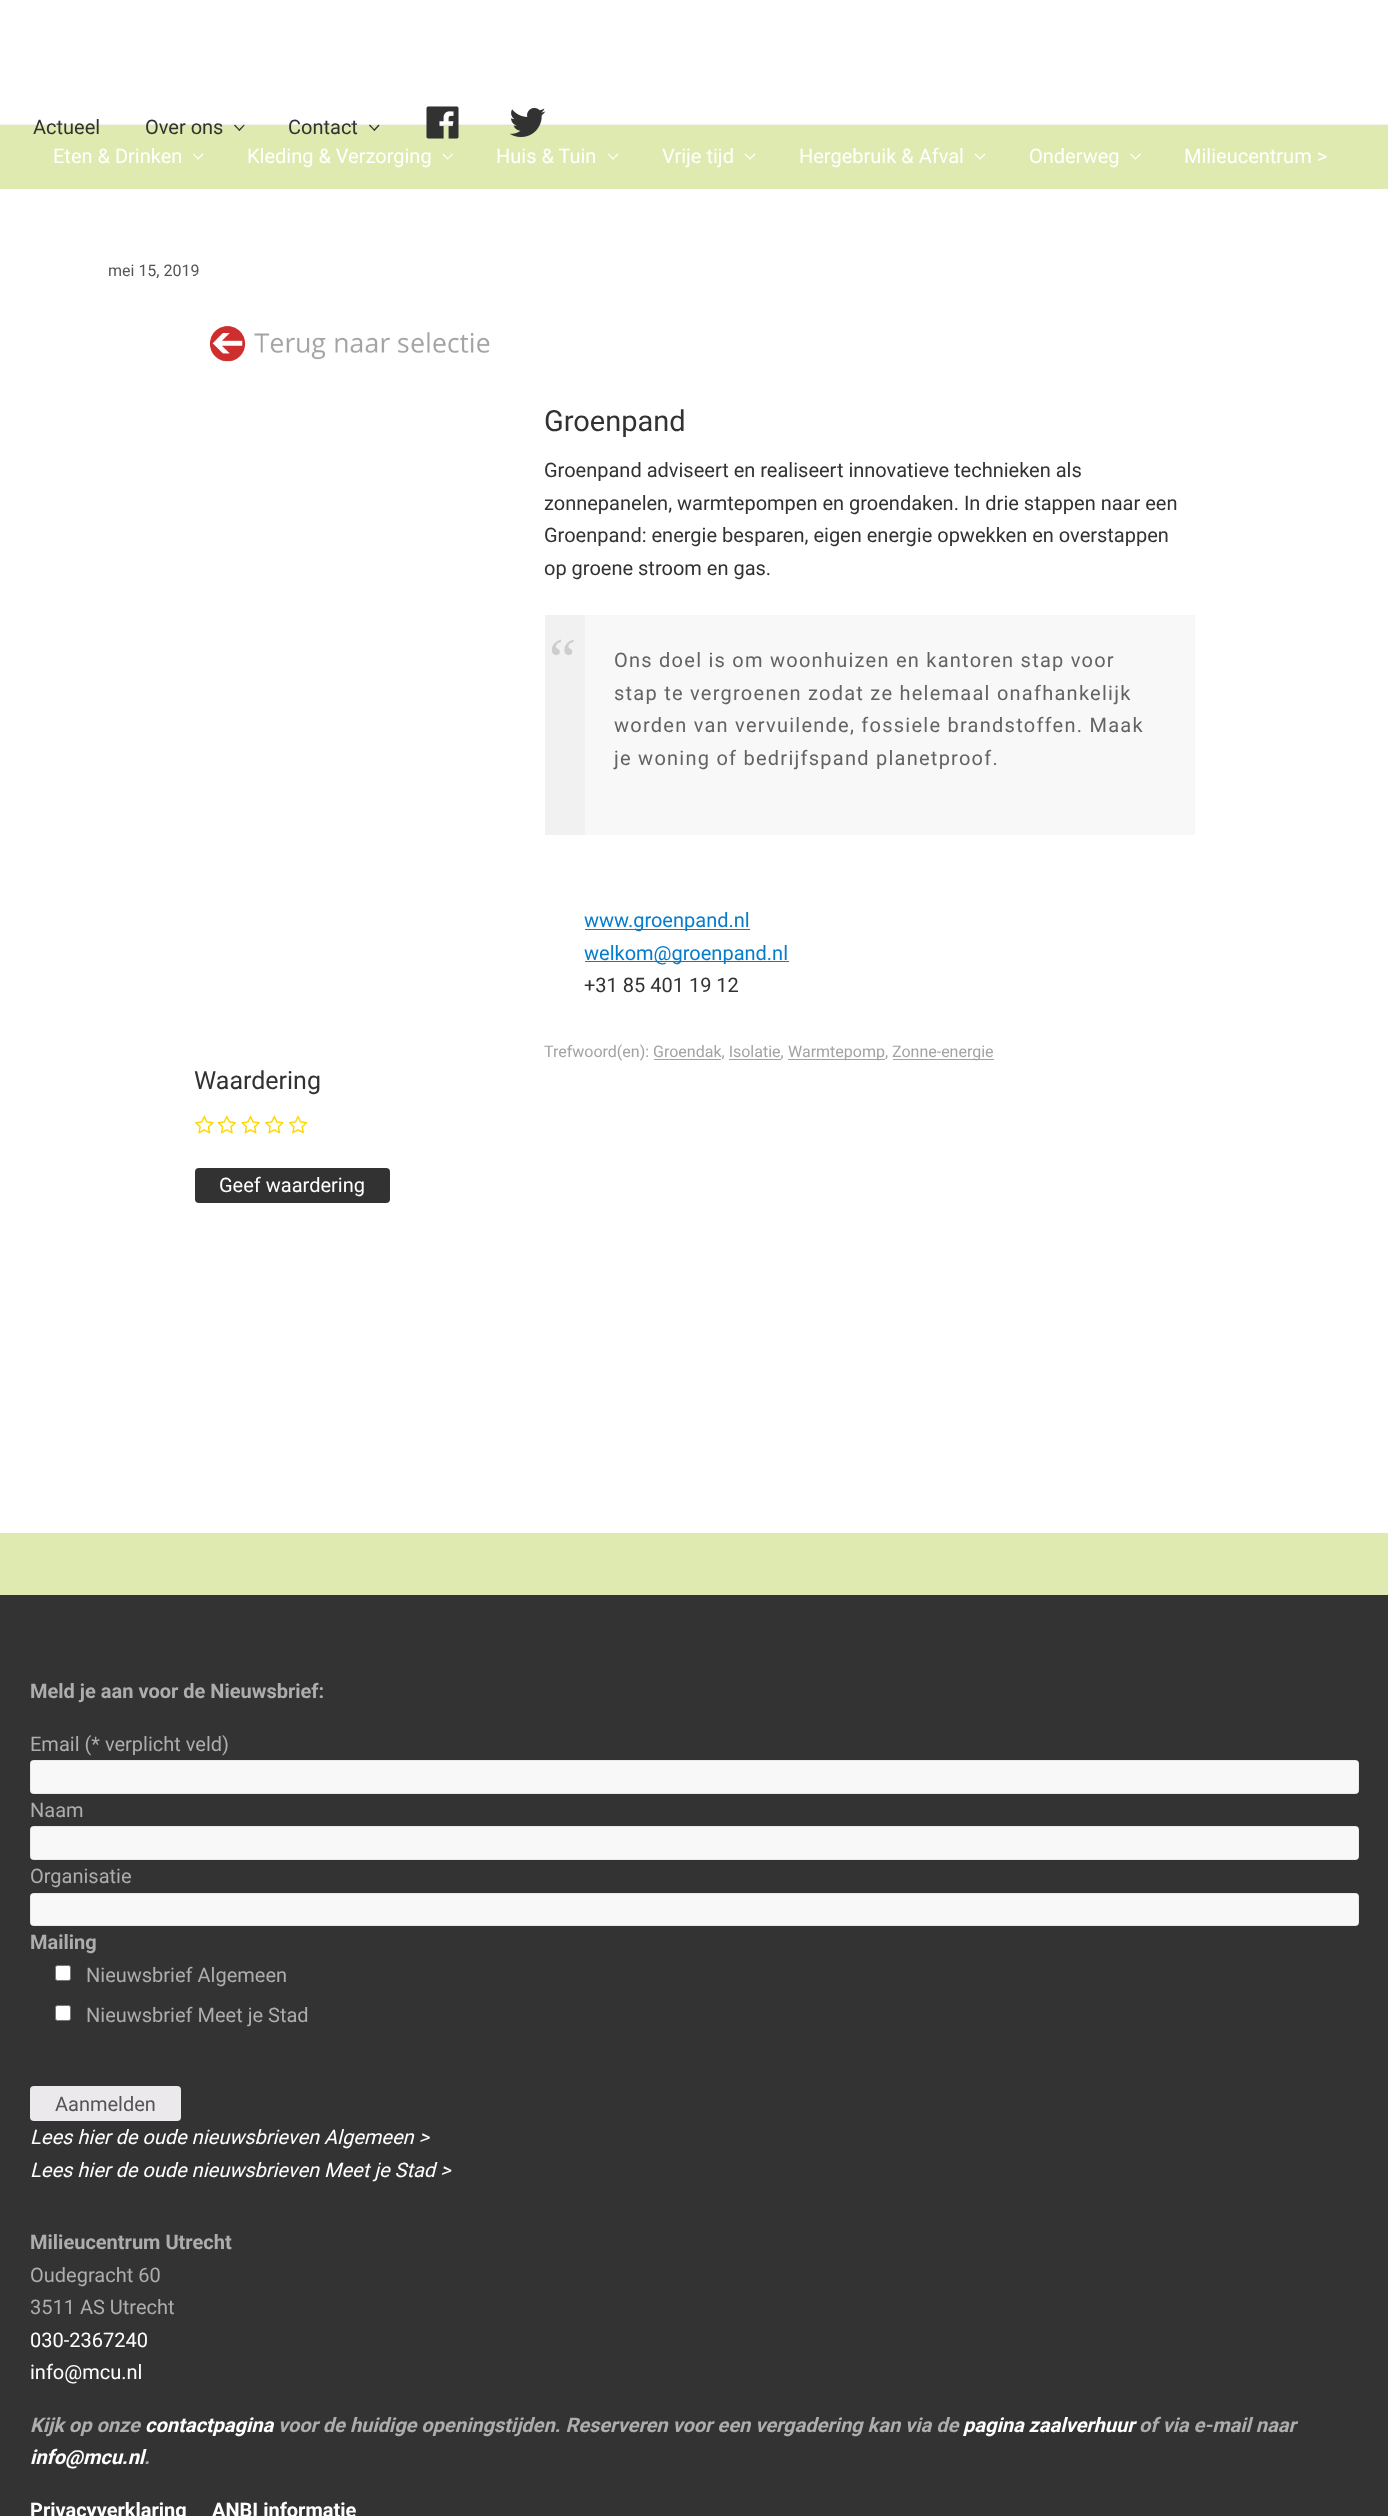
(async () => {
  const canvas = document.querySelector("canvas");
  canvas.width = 1388;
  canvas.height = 2516;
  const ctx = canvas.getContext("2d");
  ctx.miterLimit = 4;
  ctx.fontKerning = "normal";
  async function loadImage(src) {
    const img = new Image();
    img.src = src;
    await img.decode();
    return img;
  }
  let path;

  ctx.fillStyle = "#dfeab0";
  ctx.fillRect(0, 0, 1388, 2516);
  ctx.fillStyle = "#ffffff";
  ctx.fillRect(0, 0, 1388, 124);
  ctx.fillStyle = "#f2f2f2";
  ctx.fillRect(0, 124, 1388, 1);
  ctx.fillStyle = "#323232";
  path = new Path2D("M244 124.5L244.5 125.5L239.5 131L238.5 130Z");
  ctx.fill(path);
  path = new Path2D("M235 124.5L240 130L239.5 131L234 125.5Z");
  ctx.fill(path);
  path = new Path2D("M378.5 124.5L379.5 125.5L374.5 131L373.5 130Z");
  ctx.fill(path);
  path = new Path2D("M370 124.5L375 130L374.5 131L369 125.5Z");
  ctx.fill(path);
  ctx.drawImage(await loadImage("img/1.png"), 426, 106, 33, 33);
  ctx.drawImage(await loadImage("img/2.png"), 509, 108, 37, 29);
  ctx.fillStyle = "#ffffff";
  path = new Path2D("M202.5 153.5L203.5 154.5L198 159.5L197 159Z");
  ctx.fill(path);
  path = new Path2D("M193.5 153.5L199 159L198 159.5L193 154.5Z");
  ctx.fill(path);
  path = new Path2D("M452 153.5L453 154.5L447.5 159.5L447 159Z");
  ctx.fill(path);
  path = new Path2D("M443.5 153.5L448.5 159L447.5 159.5L442.5 154.5Z");
  ctx.fill(path);
  path = new Path2D("M617.5 153.5L618.5 154.5L613 159.5L612 159Z");
  ctx.fill(path);
  path = new Path2D("M608.5 153.5L614 159L613 159.5L608 154.5Z");
  ctx.fill(path);
  path = new Path2D("M754.5 153.5L755.5 154.5L750 159.5L749 159Z");
  ctx.fill(path);
  path = new Path2D("M745.5 153.5L751 159L750 159.5L744.5 154.5Z");
  ctx.fill(path);
  path = new Path2D("M984.5 153.5L985.5 154.5L980 159.5L979 159Z");
  ctx.fill(path);
  path = new Path2D("M975.5 153.5L981 159L980 159.5L974.5 154.5Z");
  ctx.fill(path);
  path = new Path2D("M1140 153.5L1141 154.5L1135.5 159.5L1134.5 159Z");
  ctx.fill(path);
  path = new Path2D("M1131 153.5L1136.5 159L1135.5 159.5L1130 154.5Z");
  ctx.fill(path);
  ctx.fillRect(0, 189, 1388, 1344);
  ctx.drawImage(await loadImage("img/3.png"), 210, 326, 280, 36);
  for (const [x, y, w, h, color] of [
    [585, 615, 610, 220, "#f8f8f8"],
    [545, 615, 40, 220, "#f1f1f1"],
    [585, 929, 165, 1, "#067ccc"],
    [585, 961, 204, 1, "#067ccc"],
    [788, 1059, 97, 1, "#a3a3a3"],
    [893, 1059, 101, 1, "#a3a3a3"],
    [654, 1059, 67, 1, "#a3a3a3"],
    [729, 1059, 52, 1, "#a3a3a3"],
  ]) {
    ctx.fillStyle = color;
    ctx.fillRect(x, y, w, h);
  }
  ctx.drawImage(await loadImage("img/4.png"), 195, 1115, 19, 19);
  ctx.drawImage(await loadImage("img/5.png"), 217, 1115, 19, 19);
  ctx.drawImage(await loadImage("img/6.png"), 241, 1115, 19, 19);
  ctx.drawImage(await loadImage("img/4.png"), 265, 1115, 19, 19);
  ctx.drawImage(await loadImage("img/7.png"), 288, 1115, 20, 19);
  ctx.fillStyle = "#323232";
  ctx.beginPath();
  ctx.roundRect(195, 1168, 195, 35, 4);
  ctx.fill();
  ctx.fillStyle = "#333333";
  ctx.fillRect(0, 1595, 1388, 921);
  ctx.fillStyle = "#f8f8f8";
  ctx.beginPath();
  ctx.roundRect(30, 1760, 1329, 34, 4);
  ctx.fill();
  ctx.strokeStyle = "rgba(0, 0, 0, 0.06)";
  ctx.strokeRect(30.5, 1760.5, 1328, 33);
  ctx.beginPath();
  ctx.roundRect(30, 1826, 1329, 34, 4);
  ctx.fill();
  ctx.strokeRect(30.5, 1826.5, 1328, 33);
  ctx.beginPath();
  ctx.roundRect(30, 1893, 1329, 33, 4);
  ctx.fill();
  ctx.strokeRect(30.5, 1893.5, 1328, 32);
  ctx.fillStyle = "#ffffff";
  ctx.beginPath();
  ctx.roundRect(55.5, 1965.5, 15, 15, 2);
  ctx.fill();
  ctx.strokeStyle = "#767676";
  ctx.stroke();
  ctx.beginPath();
  ctx.roundRect(55.5, 2005.5, 15, 15, 2);
  ctx.fill();
  ctx.stroke();
  ctx.fillStyle = "#ebe9eb";
  ctx.beginPath();
  ctx.roundRect(30, 2086, 151, 35, 4);
  ctx.fill();
  ctx.font = "20px Roboto";
  ctx.fillStyle = "#323232";
  for (const [text, x, y] of [
    ["Actueel", 33, 134],
    ["Over ons", 145, 134],
    ["Contact", 288, 134],
  ]) {
    ctx.fillText(text, x, y);
  }
  ctx.fillStyle = "#ffffff";
  for (const [text, x, y] of [
    ["Eten & Drinken", 53, 163],
    ["Kleding & Verzorging", 247, 163],
    ["Huis & Tuin", 496, 163],
    ["Vrije tijd", 662, 163],
    ["Hergebruik & Afval", 799, 163],
    ["Onderweg", 1029, 163],
    ["Milieucentrum >", 1184, 163],
  ]) {
    ctx.fillText(text, x, y);
  }
  ctx.font = "16px Roboto";
  ctx.fillStyle = "#555555";
  ctx.fillText("mei 15, 2019", 108, 276);
  ctx.font = "29px Roboto";
  ctx.fillStyle = "#323232";
  ctx.fillText("Groenpand", 544, 431);
  ctx.font = "20px Roboto";
  for (const [text, x, y] of [
    ["Groenpand adviseert en realiseert innovatieve technieken als", 544, 477],
    ["zonnepanelen, warmtepompen en groendaken. In drie stappen naar een", 544, 510],
    ["Groenpand: energie besparen, eigen energie opwekken en overstappen", 544, 542],
    ["op groene stroom en gas.", 544, 575],
  ]) {
    ctx.fillText(text, x, y);
  }
  ctx.letterSpacing = "1.25px";
  ctx.font = "61px Liberation Serif";
  ctx.fillStyle = "#cdcdcd";
  ctx.fillText("“", 549, 680);
  ctx.font = "20px Roboto";
  ctx.fillStyle = "#636363";
  for (const [text, x, y] of [
    ["Ons doel is om woonhuizen en kantoren stap voor", 614, 667],
    ["stap te vergroenen zodat ze helemaal onafhankelijk", 614, 700],
    ["worden van vervuilende, fossiele brandstoffen. Maak", 614, 732],
    ["je woning of bedrijfspand planetproof.", 614, 765],
  ]) {
    ctx.fillText(text, x, y);
  }
  ctx.letterSpacing = "0px";
  ctx.fillStyle = "#067ccc";
  ctx.fillText("www.groenpand.nl", 584, 927);
  ctx.fillText("welkom@groenpand.nl", 584, 960);
  ctx.fillStyle = "#323232";
  ctx.fillText("+31 85 401 19 12", 584, 992);
  ctx.font = "16px Roboto";
  ctx.fillStyle = "#a3a3a3";
  for (const [text, x, y] of [
    ["Trefwoord(en): Groendak, Isolatie,", 544, 1057],
    ["Warmtepomp,", 788, 1057],
    ["Zonne-energie", 892, 1057],
  ]) {
    ctx.fillText(text, x, y);
  }
  ctx.font = "25px Roboto";
  ctx.fillStyle = "#323232";
  ctx.fillText("Waardering", 194, 1089);
  ctx.font = "20px Roboto";
  ctx.fillStyle = "#ffffff";
  ctx.fillText("Geef waardering", 219, 1192);
  ctx.font = "bold 20px Roboto";
  ctx.fillStyle = "#adadad";
  ctx.fillText("Meld je aan voor de Nieuwsbrief:", 30, 1698);
  ctx.font = "20px Roboto";
  for (const [text, x, y] of [
    ["Email (* verplicht veld)", 30, 1751],
    ["Naam", 30, 1817],
    ["Organisatie", 30, 1883],
  ]) {
    ctx.fillText(text, x, y);
  }
  ctx.font = "bold 20px Roboto";
  ctx.fillText("Mailing", 30, 1949);
  ctx.font = "20px Roboto";
  ctx.fillText("Nieuwsbrief Algemeen", 86, 1982);
  ctx.fillText("Nieuwsbrief Meet je Stad", 86, 2022);
  ctx.fillStyle = "#555555";
  ctx.fillText("Aanmelden", 55, 2111);
  ctx.font = "italic 20px Roboto";
  ctx.fillStyle = "#ffffff";
  ctx.fillText("Lees hier de oude nieuwsbrieven Algemeen >", 30, 2144);
  ctx.fillText("Lees hier de oude nieuwsbrieven Meet je Stad >", 30, 2177);
  ctx.font = "bold 20px Roboto";
  ctx.fillStyle = "#adadad";
  ctx.fillText("Milieucentrum Utrecht", 30, 2249);
  ctx.font = "20px Roboto";
  ctx.fillText("Oudegracht 60", 30, 2282);
  ctx.fillText("3511 AS Utrecht", 30, 2314);
  ctx.fillStyle = "#ffffff";
  ctx.fillText("030-2367240", 30, 2347);
  ctx.fillText("info@mcu.nl", 30, 2379);
  ctx.font = "italic bold 20px Roboto";
  ctx.fillStyle = "#adadad";
  ctx.fillText("Kijk op onze", 30, 2432);
  ctx.fillStyle = "#ffffff";
  ctx.fillText("contactpagina", 145, 2432);
  ctx.fillStyle = "#adadad";
  ctx.fillText("voor de huidige openingstijden. Reserveren voor een vergadering kan via de", 278, 2432);
  ctx.fillStyle = "#ffffff";
  ctx.fillText("pagina zaalverhuur", 963, 2432);
  ctx.fillStyle = "#adadad";
  ctx.fillText("of via e-mail naar", 1139, 2432);
  ctx.fillStyle = "#ffffff";
  ctx.fillText("info@mcu.nl", 30, 2464);
  ctx.fillStyle = "#adadad";
  ctx.fillText(".", 144, 2464);
  ctx.font = "bold 20px Roboto";
  ctx.fillStyle = "#ffffff";
  ctx.fillText("Privacyverklaring", 30, 2517);
  ctx.fillText("ANBI informatie", 212, 2517);
})();
